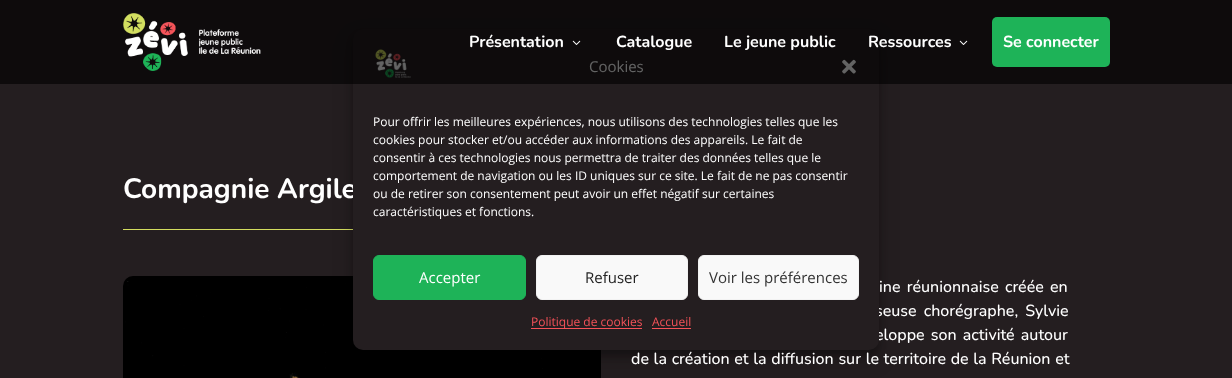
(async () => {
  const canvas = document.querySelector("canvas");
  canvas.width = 1232;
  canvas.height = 378;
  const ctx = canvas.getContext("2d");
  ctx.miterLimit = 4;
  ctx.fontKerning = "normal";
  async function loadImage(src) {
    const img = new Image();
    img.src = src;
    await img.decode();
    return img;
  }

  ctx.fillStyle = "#241e20";
  ctx.fillRect(0, 0, 1232, 378);
  ctx.fillStyle = "#d3dd5f";
  ctx.fillRect(123, 229, 230, 1);
  ctx.drawImage(await loadImage("img/3.png"), 123, 276, 478, 102);
  ctx.fillStyle = "rgba(0, 0, 0, 0.23)";
  ctx.filter = "blur(3px)";
  ctx.beginPath();
  ctx.roundRect(353, 35, 526, 321, 10);
  ctx.fill();
  ctx.filter = "none";
  ctx.fillStyle = "rgba(0, 0, 0, 0.19)";
  ctx.filter = "blur(10px)";
  ctx.beginPath();
  ctx.roundRect(353, 39, 526, 321, 10);
  ctx.fill();
  ctx.filter = "none";
  ctx.font = "200 28px Nunito";
  ctx.fillStyle = "#ffffff";
  ctx.fillText("Compagnie Argile", 123, 198);
  ctx.wordSpacing = "2px";
  ctx.font = "200 16px 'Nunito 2'";
  ctx.fillText("ine réunionnaise créée en", 879, 292);
  ctx.wordSpacing = "3px";
  ctx.fillText("seuse chorégraphe, Sylvie", 875, 316);
  ctx.wordSpacing = "2px";
  ctx.fillText("eloppe son activité autour", 875, 340);
  ctx.wordSpacing = "0.5px";
  ctx.fillText("de la création et la diffusion sur le territoire de la Réunion et", 631, 364);
  ctx.fillStyle = "#241e20";
  ctx.beginPath();
  ctx.roundRect(353, 29, 526, 321, 10);
  ctx.fill();
  ctx.drawImage(await loadImage("img/4.png"), 375, 49, 36, 29);
  ctx.wordSpacing = "0px";
  ctx.font = "15px Open Sans";
  ctx.fillStyle = "#ffffff";
  ctx.fillText("Cookies", 589, 72);
  ctx.drawImage(await loadImage("img/5.png"), 842, 59, 14, 15);
  ctx.fillStyle = "rgba(0, 0, 0, 0.61)";
  ctx.fillRect(0, 0, 1232, 84);
  ctx.fillStyle = "#1eb358";
  ctx.beginPath();
  ctx.roundRect(992, 17, 118, 50, 5);
  ctx.fill();
  ctx.font = "200 16px Nunito";
  ctx.fillStyle = "#ffffff";
  ctx.fillText("Se connecter", 1003, 47);
  ctx.drawImage(await loadImage("img/2.png"), 959, 40, 9, 5);
  for (const [text, x, y] of [
    ["Ressources", 868, 47],
    ["Le jeune public", 724, 47],
    ["Catalogue", 616, 47],
  ]) {
    ctx.fillText(text, x, y);
  }
  ctx.drawImage(await loadImage("img/2.png"), 572, 40, 9, 5);
  ctx.fillText("Présentation", 469, 47);
  ctx.drawImage(await loadImage("img/1.png"), 123, 13, 138, 58);
  ctx.font = "12px Open Sans";
  for (const [text, x, y] of [
    ["Pour offrir les meilleures expériences, nous utilisons des technologies telles que les", 373, 126],
    ["cookies pour stocker et/ou accéder aux informations des appareils. Le fait de", 373, 144],
    ["consentir à ces technologies nous permettra de traiter des données telles que le", 373, 162],
    ["comportement de navigation ou les ID uniques sur ce site. Le fait de ne pas consentir", 373, 180],
    ["ou de retirer son consentement peut avoir un effet négatif sur certaines", 373, 198],
    ["caractéristiques et fonctions.", 373, 216],
  ]) {
    ctx.fillText(text, x, y);
  }
  ctx.fillStyle = "#1eb358";
  ctx.beginPath();
  ctx.roundRect(373.5, 255.5, 152, 44, 5.5);
  ctx.fill();
  ctx.strokeStyle = "#1eb358";
  ctx.stroke();
  ctx.font = "15px Open Sans";
  ctx.fillStyle = "#ffffff";
  ctx.fillText("Accepter", 419, 283);
  ctx.fillStyle = "#f9f9f9";
  ctx.beginPath();
  ctx.roundRect(536.5, 255.5, 151, 44, 5.5);
  ctx.fill();
  ctx.strokeStyle = "#f2f2f2";
  ctx.stroke();
  ctx.fillStyle = "#222222";
  ctx.fillText("Refuser", 585, 283);
  ctx.fillStyle = "#f9f9f9";
  ctx.beginPath();
  ctx.roundRect(698.5, 255.5, 160, 44, 5.5);
  ctx.fill();
  ctx.stroke();
  ctx.fillStyle = "#333333";
  ctx.fillText("Voir les préférences", 709, 283);
  ctx.fillStyle = "#f65259";
  ctx.fillRect(531, 328, 111, 1);
  ctx.font = "12px Open Sans";
  ctx.fillText("Politique de cookies", 531, 326);
  ctx.fillText("Accueil", 652, 326);
  ctx.fillRect(652, 328, 39, 1);
})();
